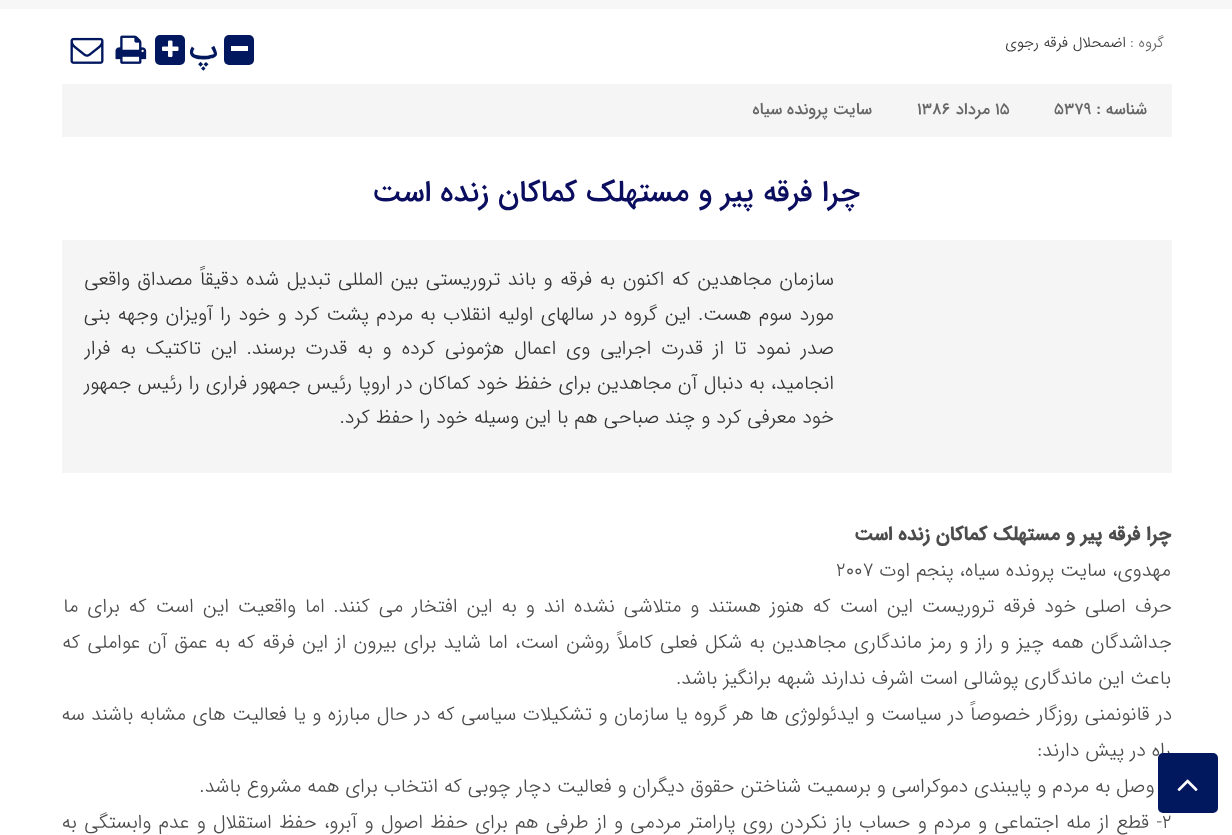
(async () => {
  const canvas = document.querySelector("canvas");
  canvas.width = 1232;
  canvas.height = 835;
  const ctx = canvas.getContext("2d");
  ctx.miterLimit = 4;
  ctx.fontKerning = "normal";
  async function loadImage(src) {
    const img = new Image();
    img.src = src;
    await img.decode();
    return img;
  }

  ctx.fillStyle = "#ffffff";
  ctx.fillRect(0, 0, 1232, 835);
  ctx.fillStyle = "#f7f7f7";
  ctx.fillRect(0, 0, 1232, 9);
  ctx.fillStyle = "#01175e";
  ctx.beginPath();
  ctx.roundRect(224, 35, 30, 30, 5);
  ctx.fill();
  ctx.fillStyle = "#ffffff";
  ctx.fillRect(231, 46, 17, 5);
  ctx.fillStyle = "#01175e";
  ctx.beginPath();
  ctx.roundRect(155, 35, 30, 30, 5);
  ctx.fill();
  ctx.drawImage(await loadImage("img/2.png"), 162, 40, 17, 17);
  ctx.drawImage(await loadImage("img/3.png"), 115, 35, 32, 29);
  ctx.drawImage(await loadImage("img/4.png"), 70, 37, 34, 27);
  ctx.fillStyle = "#f5f5f5";
  ctx.fillRect(62, 84, 1110, 53);
  ctx.fillRect(62, 240, 1110, 233);
  ctx.direction = "rtl";
  ctx.font = "300 15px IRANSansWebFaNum";
  ctx.fillStyle = "#666666";
  ctx.fillText("گروه :", 1164, 47);
  ctx.fillStyle = "#333333";
  ctx.fillText("اضمحلال فرقه رجوی", 1126, 47);
  ctx.font = "500 33px IRANSansWebFaNum";
  ctx.fillStyle = "#01175e";
  ctx.fillText("پ", 218, 59);
  ctx.font = "500 16.5px IRANSansWebFaNum";
  ctx.fillStyle = "#666666";
  ctx.fillText("شناسه :", 1147, 114);
  ctx.direction = "ltr";
  ctx.fillText("5379", 1054, 114);
  ctx.fillText("15", 995, 114);
  ctx.direction = "rtl";
  ctx.fillText("مرداد", 990, 114);
  ctx.direction = "ltr";
  ctx.fillText("1386", 917, 114);
  ctx.direction = "rtl";
  ctx.fillText("سایت پرونده سیاه", 872, 114);
  ctx.font = "500 30px IRANSansWebFaNum";
  ctx.fillStyle = "#0b0e5f";
  ctx.fillText("چرا فرقه پیر و مستهلک کماکان زنده است", 860, 201);
  ctx.wordSpacing = "1.6px";
  ctx.font = "300 19.5px IRANSansWebFaNum";
  ctx.fillStyle = "#333333";
  ctx.fillText("سازمان مجاهدین که اکنون به فرقه و باند تروریستی بین المللی تبدیل شده دقیقاً مصداق واقعی", 834, 285);
  ctx.wordSpacing = "1.4px";
  ctx.fillText("مورد سوم هست. این گروه در سالهای اولیه انقلاب به مردم پشت کرد و خود را آویزان وجهه بنی", 834, 320);
  ctx.wordSpacing = "4px";
  ctx.fillText("صدر نمود تا از قدرت اجرایی وی اعمال هژمونی کرده و به قدرت برسند. این تاکتیک به فرار", 834, 354);
  ctx.wordSpacing = "0.25px";
  ctx.fillText("انجامید، به دنبال آن مجاهدین برای خفظ خود کماکان در اروپا رئیس جمهور فراری را رئیس جمهور", 834, 389);
  ctx.wordSpacing = "0px";
  ctx.fillText("خود معرفی کرد و چند صباحی هم با این وسیله خود را حفظ کرد.", 834, 423);
  ctx.font = "bold 19.5px IRANSansWebFaNum";
  ctx.fillStyle = "#4c4c4c";
  ctx.fillText("چرا فرقه پیر و مستهلک کماکان زنده است", 1171, 540);
  ctx.font = "300 19.5px IRANSansWebFaNum";
  ctx.fillText("مهدوی، سایت پرونده سیاه، پنجم اوت", 1171, 576);
  ctx.direction = "ltr";
  ctx.fillText("2007", 836, 576);
  ctx.wordSpacing = "3px";
  ctx.direction = "rtl";
  ctx.fillText("حرف اصلی خود فرقه تروریست این است که هنوز هستند و متلاشی نشده اند و به این افتخار می کنند. اما واقعیت این است که برای ما", 1172, 612);
  ctx.wordSpacing = "1.35px";
  ctx.fillText("جداشدگان همه چیز و راز و رمز ماندگاری مجاهدین به شکل فعلی کاملاً روشن است، اما شاید برای بیرون از این فرقه که به عمق آن عواملی که", 1172, 648);
  ctx.wordSpacing = "0px";
  ctx.fillText("باعث این ماندگاری پوشالی است اشرف ندارند شبهه برانگیز باشد.", 1171, 684);
  ctx.wordSpacing = "0.6px";
  ctx.fillText("در قانونمنی روزگار خصوصاً در سیاست و ایدئولوژی ها هر گروه یا سازمان و تشکیلات سیاسی که در حال مبارزه و یا فعالیت های مشابه باشند سه", 1172, 720);
  ctx.wordSpacing = "0px";
  ctx.fillText("راه در پیش دارند:", 1171, 756);
  ctx.fillText("- وصل به مردم و پایبندی دموکراسی و برسمیت شناختن حقوق دیگران و فعالیت دچار چوبی که انتخاب برای همه مشروع باشد.", 1166, 792);
  ctx.fillStyle = "#01175e";
  ctx.beginPath();
  ctx.roundRect(1158, 753, 60, 60, 5);
  ctx.fill();
  ctx.drawImage(await loadImage("img/1.png"), 1177, 779, 21, 12);
  ctx.direction = "ltr";
  ctx.fillStyle = "#4c4c4c";
  ctx.fillText("2", 1162, 828);
  ctx.wordSpacing = "1.3px";
  ctx.direction = "rtl";
  ctx.fillText("- قطع از مله اجتماعی و مردم و حساب باز نکردن روی پارامتر مردمی و از طرفی هم برای حفظ اصول و آبرو، حفظ استقلال و عدم وابستگی به", 1162, 828);
})();
